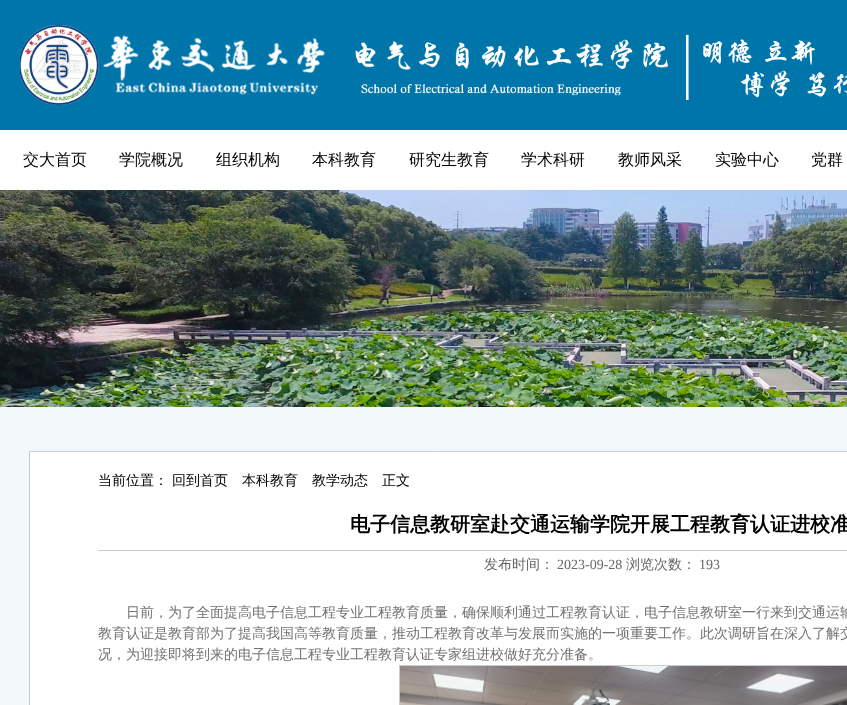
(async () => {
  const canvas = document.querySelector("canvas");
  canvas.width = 847;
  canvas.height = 705;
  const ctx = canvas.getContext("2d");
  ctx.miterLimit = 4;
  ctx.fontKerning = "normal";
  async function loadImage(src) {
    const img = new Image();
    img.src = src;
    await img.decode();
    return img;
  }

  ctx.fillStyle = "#f3f8fa";
  ctx.fillRect(0, 0, 847, 705);
  ctx.fillStyle = "#0075a9";
  ctx.fillRect(0, 0, 847, 130);
  ctx.drawImage(await loadImage("img/1.png"), 20, 25, 827, 80);
  ctx.fillStyle = "#ffffff";
  ctx.fillRect(0, 130, 847, 60);
  ctx.drawImage(await loadImage("img/2.png"), 0, 190, 847, 217);
  ctx.beginPath();
  ctx.rect(29.5, 451.5, 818, 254);
  ctx.fill();
  ctx.strokeStyle = "#cccccc";
  ctx.stroke();
  ctx.fillStyle = "#cccccc";
  ctx.fillRect(98, 550, 749, 1);
  ctx.strokeRect(399.5, 665.5, 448, 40);
  ctx.drawImage(await loadImage("img/3.png"), 400, 666, 447, 39);
  ctx.font = "500 16px WenQuanYi Zen Hei";
  ctx.fillStyle = "#000000";
  for (const [text, x, y] of [
    ["交大首页", 23, 165],
    ["学院概况", 119, 165],
    ["组织机构", 216, 165],
    ["本科教育", 312, 165],
    ["研究生教育", 409, 165],
    ["学术科研", 521, 165],
    ["教师风采", 618, 165],
    ["实验中心", 715, 165],
    ["党群", 811, 165],
  ]) {
    ctx.fillText(text, x, y);
  }
  ctx.font = "500 14px WenQuanYi Zen Hei";
  for (const [text, x, y] of [
    ["当前位置：", 98, 485],
    ["回到首页", 172, 485],
    ["本科教育", 242, 485],
    ["教学动态", 312, 485],
    ["正文", 382, 485],
  ]) {
    ctx.fillText(text, x, y);
  }
  ctx.font = "bold 20px WenQuanYi Zen Hei";
  ctx.fillText("电子信息教研室赴交通运输学院开展工程教育认证进校准", 350, 531);
  ctx.font = "500 14px WenQuanYi Zen Hei";
  ctx.fillStyle = "#676767";
  ctx.fillText("发布时间：", 484, 569);
  ctx.font = "14px Liberation Serif";
  ctx.fillText("2023-09-28", 557, 569);
  ctx.font = "500 14px WenQuanYi Zen Hei";
  ctx.fillText("浏览次数：", 626, 569);
  ctx.font = "14px Liberation Serif";
  ctx.fillText("193", 699, 569);
  ctx.font = "500 14px WenQuanYi Zen Hei";
  ctx.fillStyle = "#727272";
  for (const [text, x, y] of [
    ["日前，为了全面提高电子信息工程专业工程教育质量，确保顺利通过工程教育认证，电子信息教研室一行来到交通运输", 126, 617],
    ["教育认证是教育部为了提高我国高等教育质量，推动工程教育改革与发展而实施的一项重要工作。此次调研旨在深入了解交", 98, 638],
    ["况，为迎接即将到来的电子信息工程专业工程教育认证专家组进校做好充分准备。", 98, 659],
  ]) {
    ctx.fillText(text, x, y);
  }
})();
